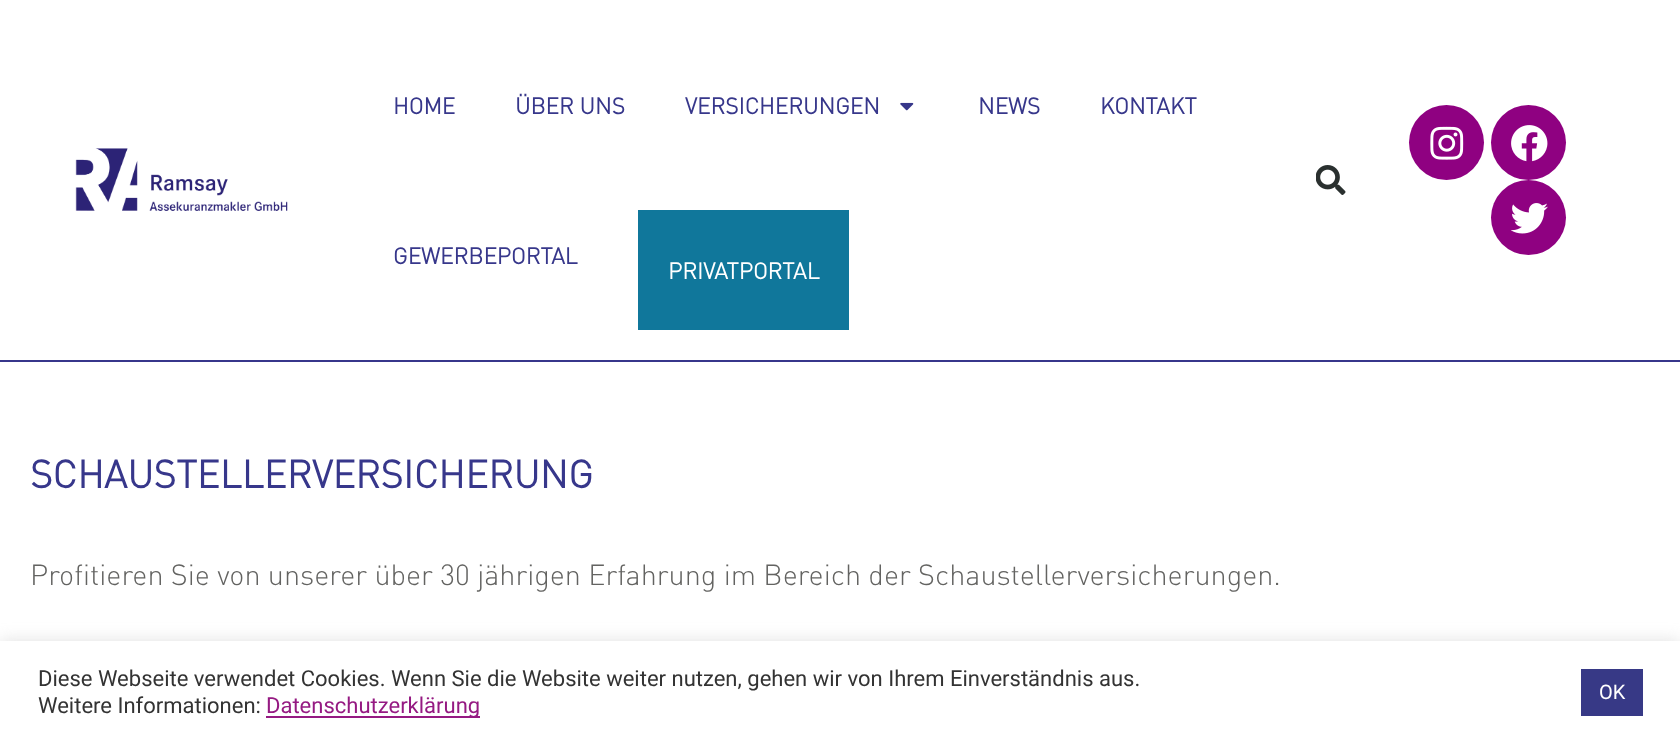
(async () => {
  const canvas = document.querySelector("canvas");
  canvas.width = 1680;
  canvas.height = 744;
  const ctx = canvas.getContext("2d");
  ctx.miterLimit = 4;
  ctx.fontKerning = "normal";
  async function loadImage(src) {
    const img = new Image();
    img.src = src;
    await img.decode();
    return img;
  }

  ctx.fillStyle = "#ffffff";
  ctx.fillRect(0, 0, 1680, 744);
  ctx.fillStyle = "#37368b";
  ctx.fillRect(0, 360, 1680, 2);
  ctx.drawImage(await loadImage("img/1.png"), 75, 148, 213, 63);
  ctx.drawImage(await loadImage("img/2.png"), 900, 102, 14, 9);
  ctx.fillStyle = "#10779b";
  ctx.fillRect(638, 210, 211, 120);
  ctx.drawImage(await loadImage("img/3.png"), 1316, 165, 30, 30);
  ctx.fillStyle = "#8f0181";
  ctx.beginPath();
  ctx.arc(1446.5, 142.5, 37.5, 0, Math.PI * 2);
  ctx.fill();
  ctx.drawImage(await loadImage("img/4.png"), 1430, 126, 34, 34);
  ctx.beginPath();
  ctx.arc(1528.5, 142.5, 37.5, 0, Math.PI * 2);
  ctx.fill();
  ctx.drawImage(await loadImage("img/5.png"), 1511, 125, 37, 37);
  ctx.beginPath();
  ctx.arc(1528.5, 217.5, 37.5, 0, Math.PI * 2);
  ctx.fill();
  ctx.drawImage(await loadImage("img/6.png"), 1511, 203, 37, 31);
  ctx.fillStyle = "rgba(172, 171, 171, 0.3)";
  ctx.filter = "blur(7.5px)";
  ctx.beginPath();
  ctx.rect(0, 639, 1680, 104);
  ctx.fill();
  ctx.filter = "none";
  for (const [x, y, w, h, color] of [
    [0, 641, 1680, 103, "#ffffff"],
    [266, 716, 214, 2, "#951a82"],
    [1581, 669, 62, 47, "#373986"],
  ]) {
    ctx.fillStyle = color;
    ctx.fillRect(x, y, w, h);
  }
  ctx.font = "bold 22.5px DIN";
  ctx.fillStyle = "#37378b";
  for (const [text, x, y] of [
    ["HOME", 393, 114],
    ["ÜBER UNS", 515, 114],
    ["VERSICHERUNGEN", 685, 114],
    ["NEWS", 978, 114],
    ["KONTAKT", 1100, 114],
    ["GEWERBEPORTAL", 393, 264],
  ]) {
    ctx.fillText(text, x, y);
  }
  ctx.fillStyle = "#ffffff";
  ctx.fillText("PRIVATPORTAL", 668, 279);
  ctx.font = "bold 38.4px DIN";
  ctx.fillStyle = "#37378b";
  ctx.fillText("SCHAUSTELLERVERSICHERUNG", 30, 488);
  ctx.font = "300 28.8px DIN";
  ctx.fillStyle = "#636361";
  ctx.fillText("Profitieren Sie von unserer über 30 jährigen Erfahrung im Bereich der Schaustellerversicherungen.", 30, 585);
  ctx.font = "22px Roboto";
  ctx.fillStyle = "#333333";
  ctx.fillText("Diese Webseite verwendet Cookies. Wenn Sie die Website weiter nutzen, gehen wir von Ihrem Einverständnis aus.", 38, 686);
  ctx.fillText("Weitere Informationen:", 38, 713);
  ctx.fillStyle = "#951a82";
  ctx.fillText("Datenschutzerklärung", 266, 713);
  ctx.font = "20px Roboto";
  ctx.fillStyle = "#ffffff";
  ctx.fillText("OK", 1599, 699);
})();
